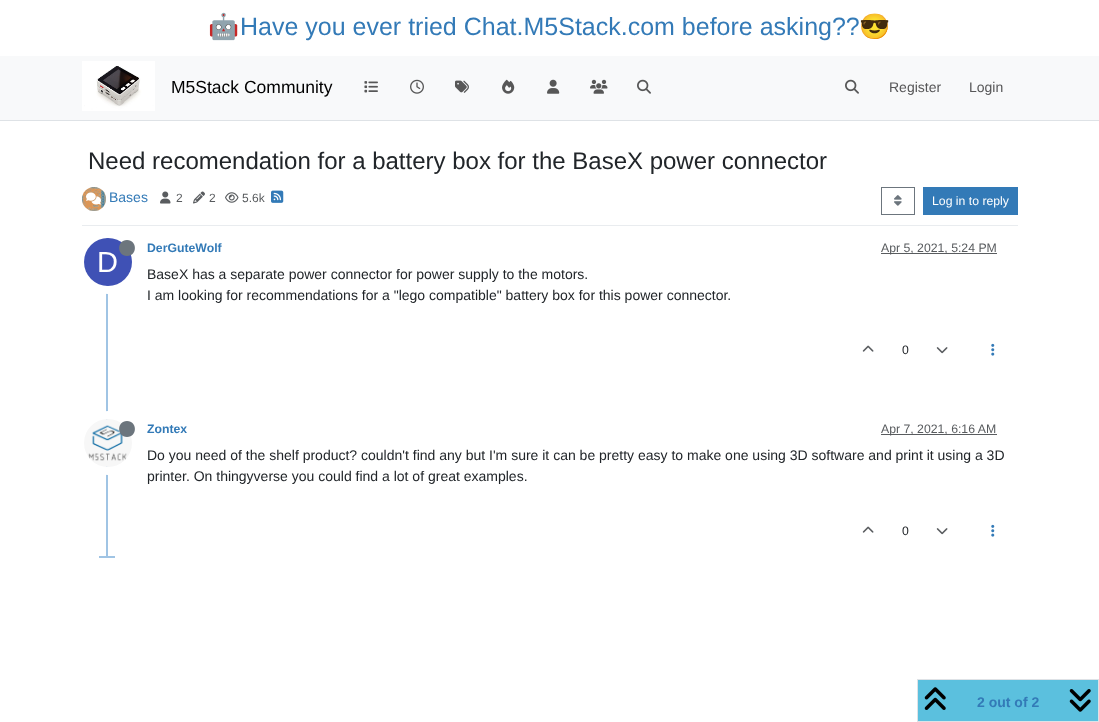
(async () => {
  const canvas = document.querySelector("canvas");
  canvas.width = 1099;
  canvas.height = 722;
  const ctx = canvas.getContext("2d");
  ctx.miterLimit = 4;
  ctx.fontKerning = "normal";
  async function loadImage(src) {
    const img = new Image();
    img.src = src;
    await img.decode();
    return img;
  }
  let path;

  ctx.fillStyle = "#ffffff";
  ctx.fillRect(0, 0, 1099, 722);
  ctx.fillStyle = "#f8f9fa";
  ctx.fillRect(0, 56, 1099, 64);
  ctx.fillStyle = "#dee2e6";
  ctx.fillRect(0, 120, 1099, 1);
  ctx.drawImage(await loadImage("img/1.png"), 82, 61, 73, 50);
  ctx.drawImage(await loadImage("img/2.png"), 364, 81, 14, 12);
  ctx.drawImage(await loadImage("img/3.png"), 410, 79, 14, 15);
  ctx.drawImage(await loadImage("img/4.png"), 455, 80, 14, 13);
  ctx.drawImage(await loadImage("img/5.png"), 502, 79, 13, 15);
  ctx.drawImage(await loadImage("img/6.png"), 547, 79, 13, 15);
  ctx.drawImage(await loadImage("img/7.png"), 590, 79, 18, 15);
  ctx.drawImage(await loadImage("img/8.png"), 637, 79, 14, 15);
  ctx.drawImage(await loadImage("img/8.png"), 845, 79, 14, 15);
  ctx.fillStyle = "#e9ecef";
  ctx.fillRect(82, 225, 936, 1);
  ctx.fillStyle = "#dc9656";
  ctx.beginPath();
  ctx.arc(94, 199, 12, 0, Math.PI * 2);
  ctx.fill();
  ctx.drawImage(await loadImage("img/9.png"), 82, 187, 24, 24);
  ctx.drawImage(await loadImage("img/10.png"), 86, 192, 15, 13);
  ctx.drawImage(await loadImage("img/11.png"), 160, 191, 11, 13);
  ctx.drawImage(await loadImage("img/12.png"), 193, 191, 12, 13);
  ctx.drawImage(await loadImage("img/13.png"), 225, 192, 14, 11);
  ctx.drawImage(await loadImage("img/14.png"), 271, 190, 13, 13);
  ctx.strokeStyle = "#6c757d";
  ctx.strokeRect(881.5, 187.5, 33, 27);
  ctx.drawImage(await loadImage("img/15.png"), 894, 195, 8, 11);
  for (const [x, y, w, h, color] of [
    [923, 187, 95, 28, "#337ab7"],
    [106, 236, 2, 322, "#a0c4e4"],
    [881, 253, 116, 1, "#595c5f"],
  ]) {
    ctx.fillStyle = color;
    ctx.fillRect(x, y, w, h);
  }
  ctx.beginPath();
  ctx.arc(108, 262, 28, 0, Math.PI * 2);
  ctx.strokeStyle = "#ffffff";
  ctx.lineWidth = 8;
  ctx.stroke();
  ctx.fillStyle = "#3f51b5";
  ctx.beginPath();
  ctx.arc(108, 262, 24, 0, Math.PI * 2);
  ctx.fill();
  ctx.fillStyle = "#6c757d";
  path = new Path2D("M127 256C137.5 256 137.5 240 127 240C116.5 240 116.5 256 127 256Z");
  ctx.fill(path);
  ctx.drawImage(await loadImage("img/16.png"), 862, 345, 12, 7);
  ctx.drawImage(await loadImage("img/17.png"), 936, 347, 12, 7);
  ctx.drawImage(await loadImage("img/18.png"), 991, 343, 4, 13);
  ctx.beginPath();
  ctx.arc(108, 443, 28, 0, Math.PI * 2);
  ctx.stroke();
  ctx.drawImage(await loadImage("img/19.png"), 84, 419, 48, 48);
  path = new Path2D("M127 437C137.5 437 137.5 421 127 421C116.5 421 116.5 437 127 437Z");
  ctx.fill(path);
  ctx.fillStyle = "#595c5f";
  ctx.fillRect(881, 434, 116, 1);
  ctx.drawImage(await loadImage("img/16.png"), 862, 526, 12, 7);
  ctx.drawImage(await loadImage("img/17.png"), 936, 528, 12, 7);
  ctx.drawImage(await loadImage("img/18.png"), 991, 524, 4, 13);
  ctx.fillStyle = "#a0c4e4";
  ctx.fillRect(99, 556, 16, 2);
  ctx.strokeStyle = "#dee2e6";
  ctx.lineWidth = 1;
  ctx.strokeRect(917.5, 679.5, 181, 42);
  ctx.fillStyle = "#5bc0de";
  ctx.fillRect(918, 680, 180, 41);
  ctx.drawImage(await loadImage("img/20.png"), 924, 687, 22, 23);
  ctx.drawImage(await loadImage("img/21.png"), 1069, 689, 22, 23);
  ctx.font = "25px Noto Color Emoji";
  ctx.fillStyle = "#337ab7";
  ctx.fillText("🤖", 208, 35);
  ctx.font = "25px Liberation Sans";
  ctx.fillText("Have you ever tried Chat.M5Stack.com before asking??", 240, 35);
  ctx.font = "25px Noto Color Emoji";
  ctx.fillText("😎", 859, 35);
  ctx.font = "17.5px Liberation Sans";
  ctx.fillStyle = "#000000";
  ctx.fillText("M5Stack Community", 171, 93);
  ctx.font = "14px Liberation Sans";
  ctx.fillStyle = "#575758";
  ctx.fillText("Register", 889, 92);
  ctx.fillText("Login", 969, 92);
  ctx.font = "24px Liberation Sans";
  ctx.fillStyle = "#212529";
  ctx.fillText("Need recomendation for a battery box for the BaseX power connector", 88, 169);
  ctx.font = "14px Liberation Sans";
  ctx.fillStyle = "#337ab7";
  ctx.fillText("Bases", 109, 202);
  ctx.font = "12px Liberation Sans";
  ctx.fillStyle = "#585b5e";
  for (const [text, x, y] of [
    ["2", 176, 202],
    ["2", 209, 202],
    ["5.6k", 242, 202],
  ]) {
    ctx.fillText(text, x, y);
  }
  ctx.font = "12.25px Liberation Sans";
  ctx.fillStyle = "#ffffff";
  ctx.fillText("Log in to reply", 932, 205);
  ctx.font = "bold 12.25px Liberation Sans";
  ctx.fillStyle = "#337ab7";
  ctx.fillText("DerGuteWolf", 147, 252);
  ctx.font = "12.25px Liberation Sans";
  ctx.fillStyle = "#585b5e";
  ctx.fillText("Apr 5, 2021, 5:24 PM", 881, 252);
  ctx.font = "29px Liberation Sans";
  ctx.fillStyle = "#ffffff";
  ctx.fillText("D", 97, 272);
  ctx.font = "14px Liberation Sans";
  ctx.fillStyle = "#212529";
  ctx.fillText("BaseX has a separate power connector for power supply to the motors.", 147, 279);
  ctx.fillText("I am looking for recommendations for a \"lego compatible\" battery box for this power connector.", 147, 300);
  ctx.font = "12.25px Liberation Sans";
  ctx.fillText("0", 902, 354);
  ctx.font = "bold 12.25px Liberation Sans";
  ctx.fillStyle = "#337ab7";
  ctx.fillText("Zontex", 147, 433);
  ctx.font = "12.25px Liberation Sans";
  ctx.fillStyle = "#585b5e";
  ctx.fillText("Apr 7, 2021, 6:16 AM", 881, 433);
  ctx.font = "14px Liberation Sans";
  ctx.fillStyle = "#212529";
  ctx.fillText("Do you need of the shelf product? couldn't find any but I'm sure it can be pretty easy to make one using 3D software and print it using a 3D", 147, 460);
  ctx.fillText("printer. On thingyverse you could find a lot of great examples.", 147, 481);
  ctx.font = "12.25px Liberation Sans";
  ctx.fillText("0", 902, 535);
  ctx.font = "bold 14px Liberation Sans";
  ctx.fillStyle = "#337ab7";
  ctx.fillText("2 out of 2", 977, 707);
})();
